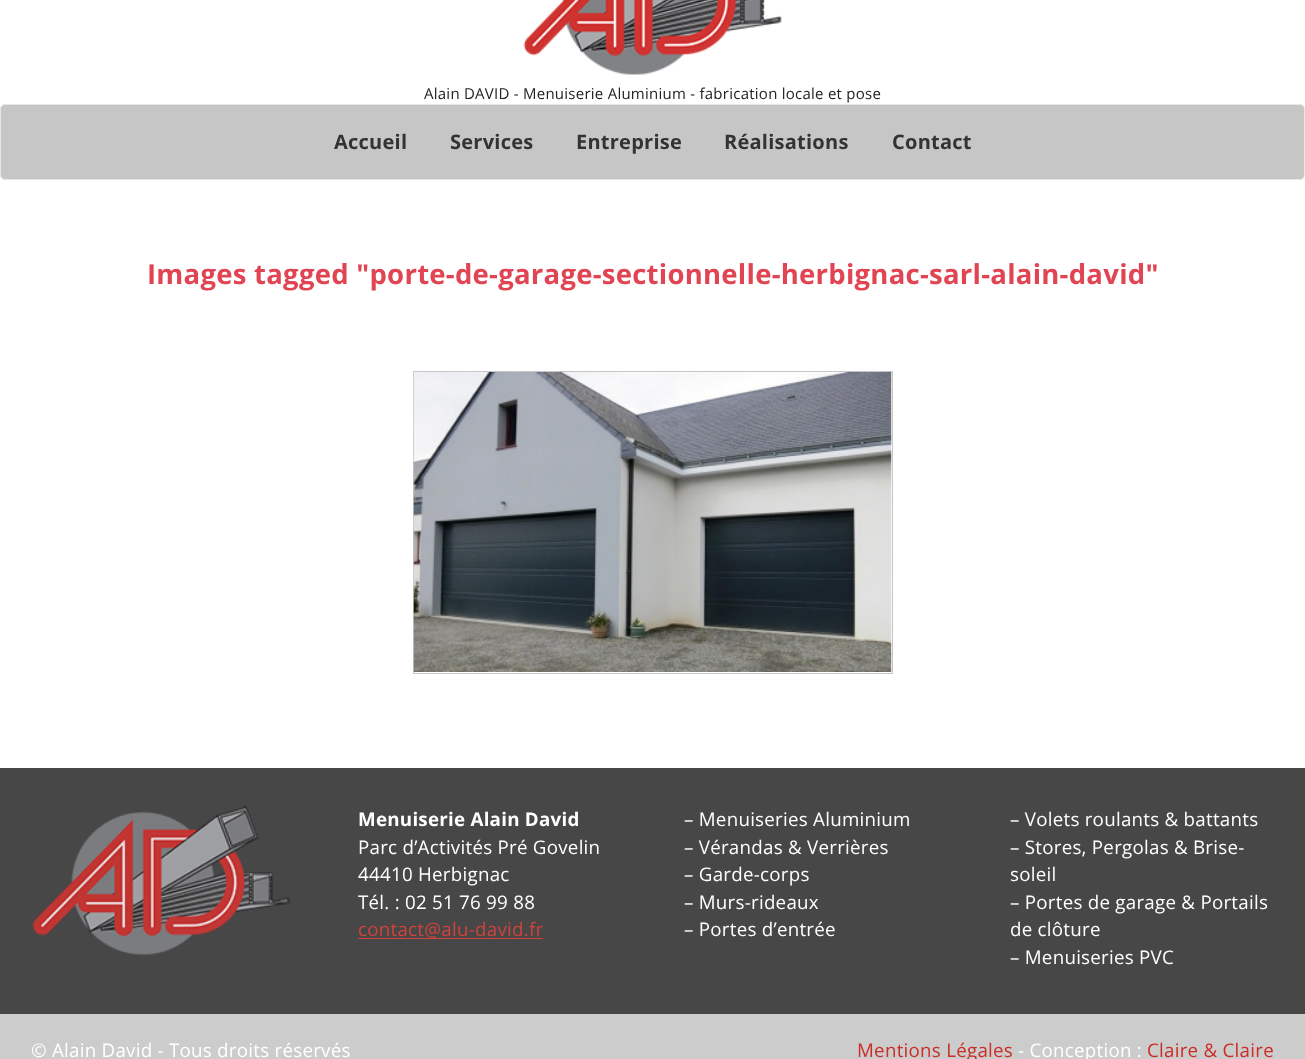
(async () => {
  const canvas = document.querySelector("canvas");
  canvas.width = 1305;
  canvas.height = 1059;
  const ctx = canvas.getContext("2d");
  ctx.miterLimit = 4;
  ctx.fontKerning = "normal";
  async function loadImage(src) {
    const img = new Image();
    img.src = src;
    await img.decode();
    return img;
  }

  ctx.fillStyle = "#ffffff";
  ctx.fillRect(0, 0, 1305, 1059);
  ctx.drawImage(await loadImage("img/1.png"), 523, 0, 259, 75);
  ctx.fillStyle = "#c6c6c6";
  ctx.beginPath();
  ctx.roundRect(0.5, 104.5, 1304, 75, 4.5);
  ctx.fill();
  ctx.strokeStyle = "#e7e7e7";
  ctx.stroke();
  ctx.strokeStyle = "#c6c6c6";
  ctx.strokeRect(413.5, 371.5, 479, 302);
  ctx.drawImage(await loadImage("img/2.png"), 413, 372, 479, 300);
  ctx.fillStyle = "#474747";
  ctx.fillRect(0, 768, 1305, 246);
  ctx.drawImage(await loadImage("img/3.png"), 32, 805, 258, 150);
  ctx.fillStyle = "#d1423d";
  ctx.fillRect(358, 938, 185, 1);
  ctx.fillStyle = "#cccccc";
  ctx.fillRect(0, 1014, 1305, 45);
  ctx.letterSpacing = "0.25px";
  ctx.font = "15px Open Sans";
  ctx.fillStyle = "#222222";
  ctx.fillText("Alain DAVID - Menuiserie Aluminium - fabrication locale et pose", 424, 99);
  ctx.font = "bold 20px Open Sans";
  ctx.fillStyle = "#333333";
  for (const [text, x, y] of [
    ["Accueil", 334, 149],
    ["Services", 450, 149],
    ["Entreprise", 576, 149],
    ["Réalisations", 724, 149],
    ["Contact", 892, 149],
  ]) {
    ctx.fillText(text, x, y);
  }
  ctx.font = "bold 27.5px Open Sans";
  ctx.fillStyle = "#e14553";
  ctx.fillText("Images tagged \"porte-de-garage-sectionnelle-herbignac-sarl-alain-david\"", 147, 284);
  ctx.font = "bold 18.75px Open Sans";
  ctx.fillStyle = "#ffffff";
  ctx.fillText("Menuiserie Alain David", 358, 826);
  ctx.font = "18.75px Open Sans";
  for (const [text, x, y] of [
    ["Parc d’Activités Pré Govelin", 358, 854],
    ["44410 Herbignac", 358, 881],
    ["Tél. : 02 51 76 99 88", 358, 909],
  ]) {
    ctx.fillText(text, x, y);
  }
  ctx.fillStyle = "#d1423d";
  ctx.fillText("contact@alu-david.fr", 358, 936);
  ctx.fillStyle = "#ffffff";
  for (const [text, x, y] of [
    ["– Menuiseries Aluminium", 684, 826],
    ["– Vérandas & Verrières", 684, 854],
    ["– Garde-corps", 684, 881],
    ["– Murs-rideaux", 684, 909],
    ["– Portes d’entrée", 684, 936],
    ["– Volets roulants & battants", 1010, 826],
    ["– Stores, Pergolas & Brise-", 1010, 854],
    ["soleil", 1010, 881],
    ["– Portes de garage & Portails", 1010, 909],
    ["de clôture", 1010, 936],
    ["– Menuiseries PVC", 1010, 964],
    ["© Alain David - Tous droits réservés", 31, 1057],
  ]) {
    ctx.fillText(text, x, y);
  }
  ctx.fillStyle = "#cc2d27";
  ctx.fillText("Mentions Légales", 857, 1057);
  ctx.fillStyle = "#ffffff";
  ctx.fillText("- Conception :", 1018, 1057);
  ctx.fillStyle = "#cc2d27";
  ctx.fillText("Claire & Claire", 1147, 1057);
})();
